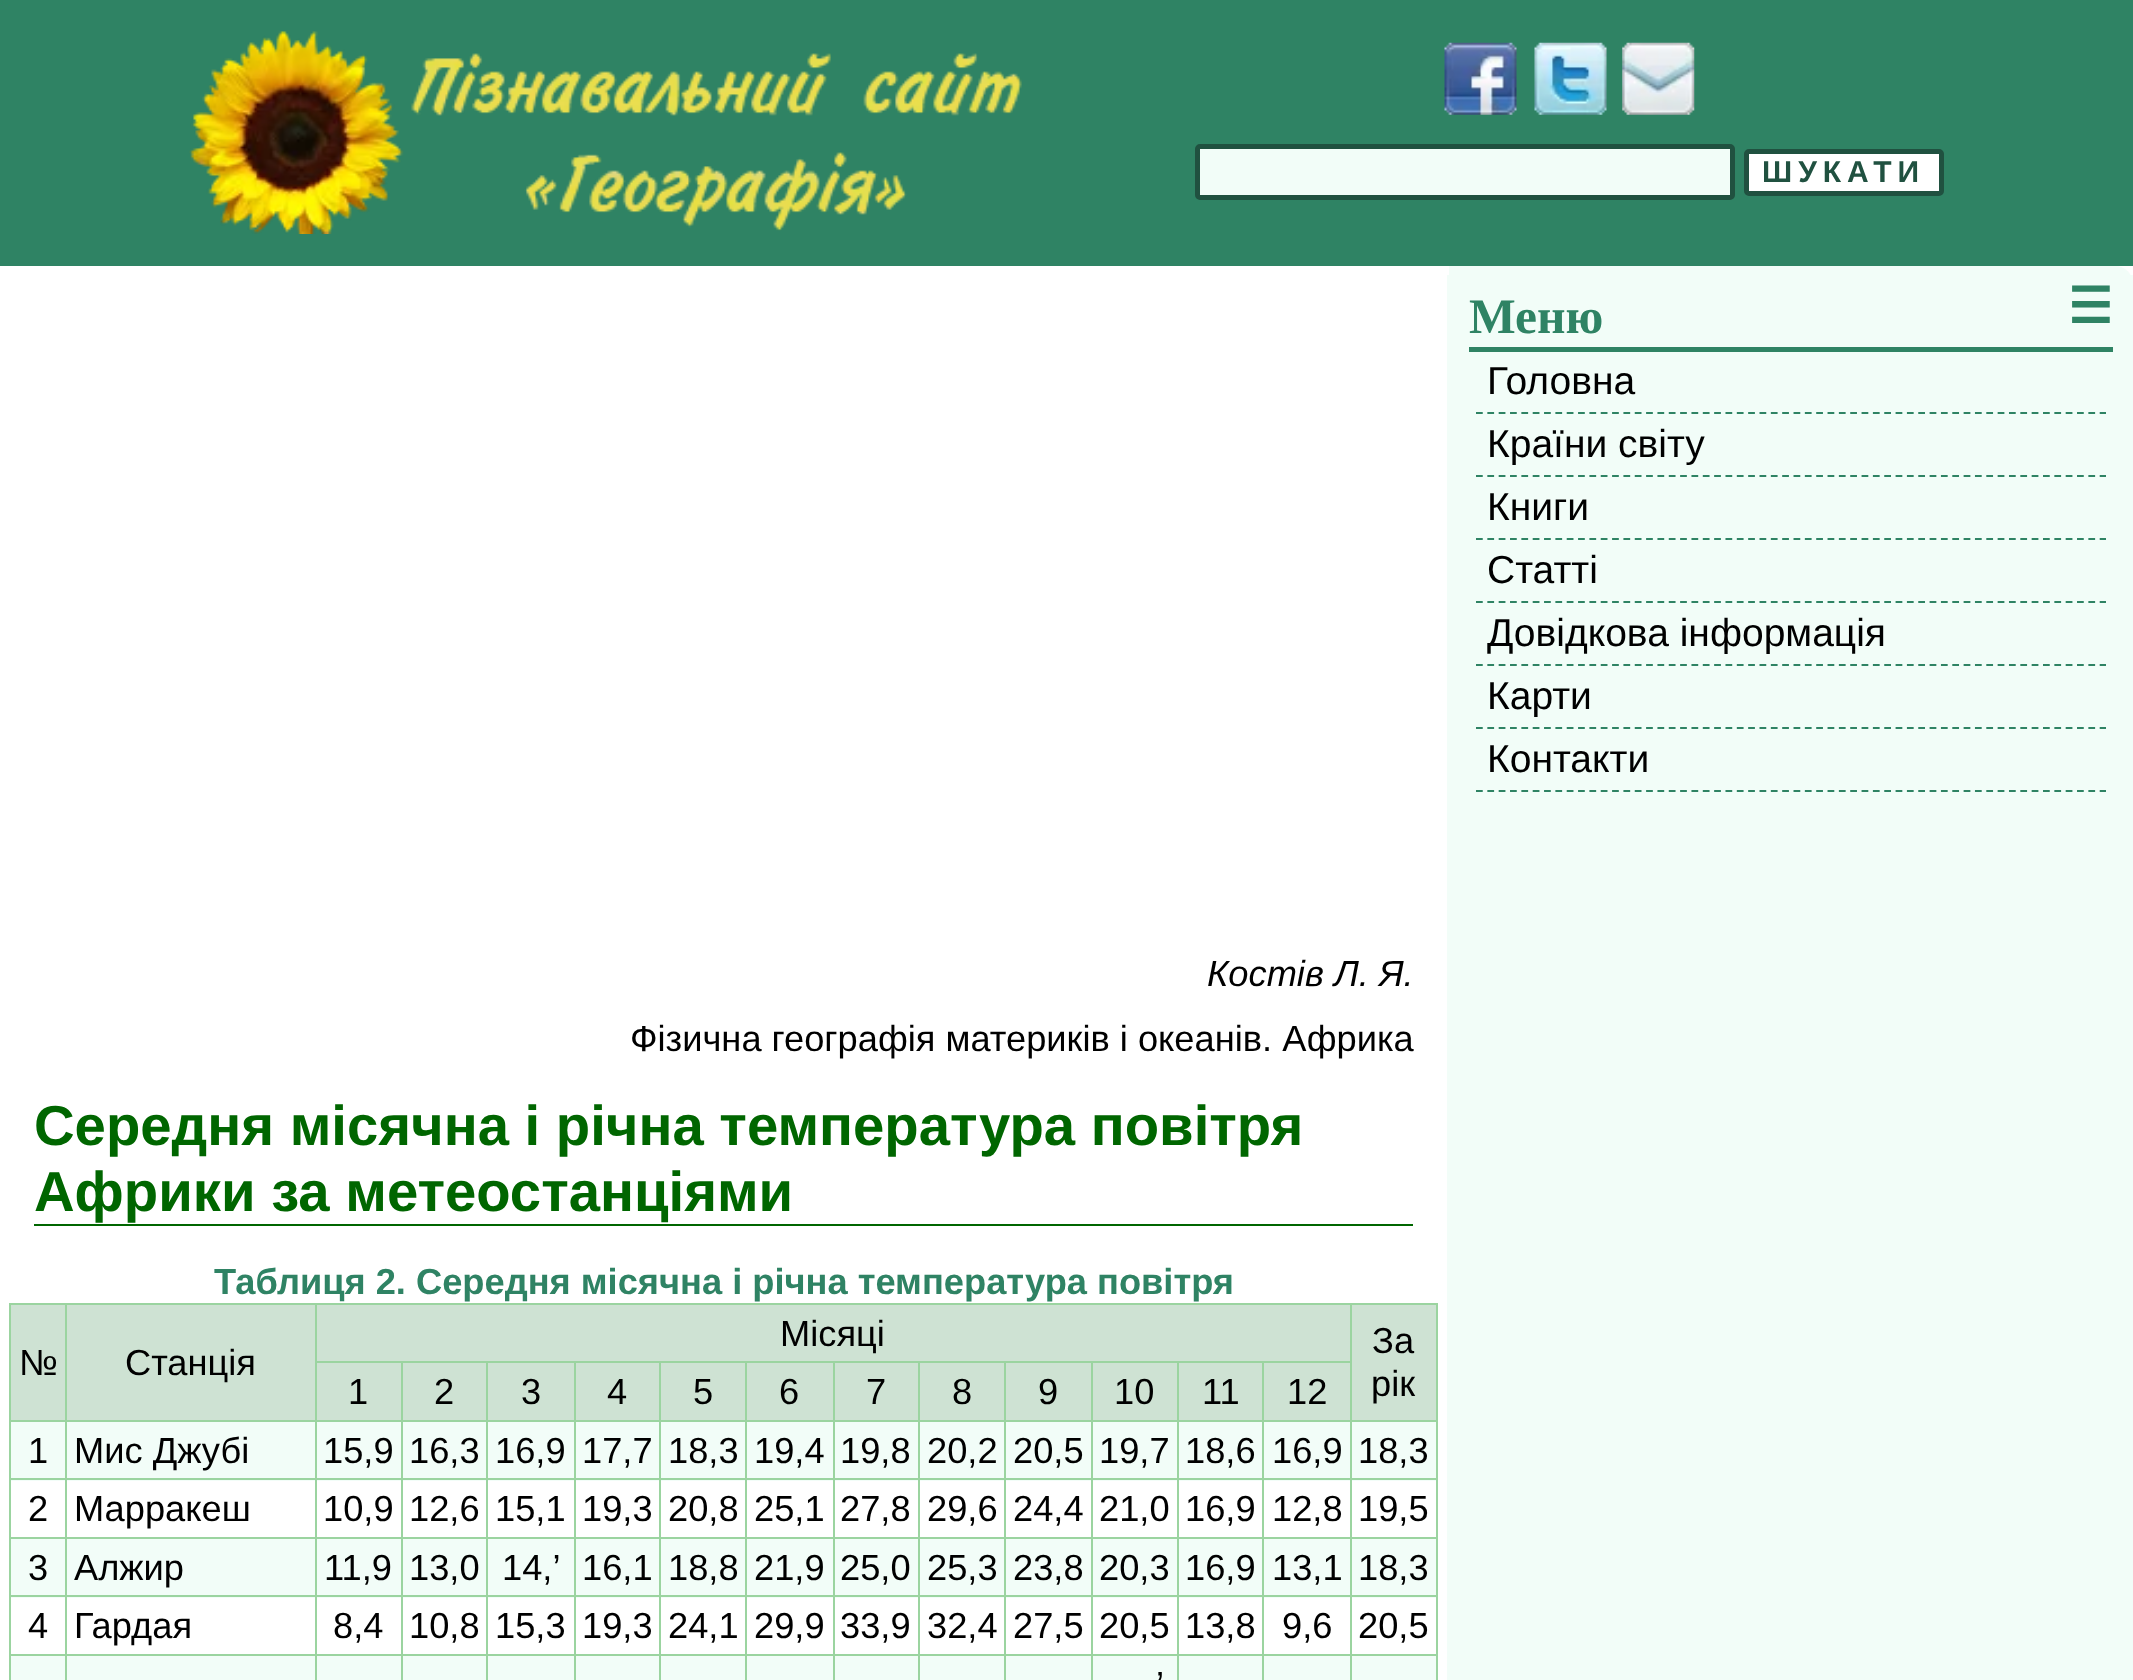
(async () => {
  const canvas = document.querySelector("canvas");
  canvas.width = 2133;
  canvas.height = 1680;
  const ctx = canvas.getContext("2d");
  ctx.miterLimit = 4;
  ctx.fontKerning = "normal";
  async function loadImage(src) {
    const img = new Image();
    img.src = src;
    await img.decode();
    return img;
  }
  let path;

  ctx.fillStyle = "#ffffff";
  ctx.fillRect(0, 0, 2133, 1680);
  ctx.fillStyle = "#2f8364";
  ctx.fillRect(0, 0, 2133, 266);
  ctx.drawImage(await loadImage("img/1.png"), 189, 31, 833, 203);
  ctx.drawImage(await loadImage("img/2.png"), 1444, 42, 73, 73);
  ctx.drawImage(await loadImage("img/3.png"), 1534, 42, 73, 73);
  ctx.drawImage(await loadImage("img/4.png"), 1622, 42, 73, 73);
  ctx.fillStyle = "#f2fdf8";
  ctx.beginPath();
  ctx.roundRect(1197.5, 146.5, 535, 51, 2.5);
  ctx.fill();
  ctx.strokeStyle = "#205140";
  ctx.lineWidth = 5;
  ctx.stroke();
  ctx.fillStyle = "#ffffff";
  ctx.beginPath();
  ctx.roundRect(1746.5, 151.5, 195, 42, 2.5);
  ctx.fill();
  ctx.stroke();
  ctx.fillStyle = "#f2fdf8";
  ctx.fillRect(1447, 275, 686, 1405);
  ctx.beginPath();
  ctx.roundRect(1449, 266, 684, 580, [0, 18, 0, 0]);
  ctx.fill();
  ctx.fillStyle = "#2f8364";
  ctx.fillRect(1469, 347, 644, 5);
  path = new Path2D("M1476 413H2106");
  ctx.strokeStyle = "#2f8364";
  ctx.lineWidth = 2.2;
  ctx.setLineDash([6.75, 4.59]);
  ctx.stroke(path);
  path = new Path2D("M1476 476H2106");
  ctx.stroke(path);
  path = new Path2D("M1476 539H2106");
  ctx.stroke(path);
  path = new Path2D("M1476 602H2106");
  ctx.stroke(path);
  path = new Path2D("M1476 665H2106");
  ctx.stroke(path);
  path = new Path2D("M1476 728H2106");
  ctx.stroke(path);
  path = new Path2D("M1476 791H2106");
  ctx.stroke(path);
  for (const [x, y, w, h, color] of [
    [34, 1224, 1379, 2, "#006600"],
    [11, 1305, 304, 115, "#cee2d3"],
    [1350, 1303, 88, 2, "#9bd4a0"],
    [317, 1305, 1033, 59, "#cee2d3"],
    [1262, 1361, 90, 2, "#9bd4a0"],
    [1350, 1420, 88, 2, "#9bd4a0"],
    [11, 1422, 1425, 59, "#f2fdf8"],
    [1350, 1478, 88, 2, "#9bd4a0"],
    [1350, 1537, 88, 2, "#9bd4a0"],
    [11, 1539, 1425, 59, "#f2fdf8"],
    [1350, 1595, 88, 2, "#9bd4a0"],
    [1350, 1654, 88, 2, "#9bd4a0"],
    [11, 1656, 1425, 24, "#f2fdf8"],
    [1350, 1654, 2, 26, "#9bd4a0"],
    [1262, 1654, 90, 2, "#9bd4a0"],
    [1350, 1595, 2, 61, "#9bd4a0"],
    [1262, 1595, 90, 2, "#9bd4a0"],
    [1350, 1537, 2, 61, "#9bd4a0"],
    [1262, 1537, 90, 2, "#9bd4a0"],
    [1350, 1478, 2, 61, "#9bd4a0"],
    [1262, 1478, 90, 2, "#9bd4a0"],
    [1350, 1420, 2, 61, "#9bd4a0"],
    [1262, 1420, 90, 2, "#9bd4a0"],
    [1350, 1303, 2, 119, "#9bd4a0"],
    [315, 1303, 1037, 2, "#9bd4a0"],
    [1179, 1364, 171, 56, "#cee2d3"],
    [1262, 1654, 2, 26, "#9bd4a0"],
    [1177, 1654, 88, 2, "#9bd4a0"],
    [1262, 1595, 2, 61, "#9bd4a0"],
    [1177, 1595, 88, 2, "#9bd4a0"],
    [1262, 1537, 2, 61, "#9bd4a0"],
    [1177, 1537, 88, 2, "#9bd4a0"],
    [1262, 1478, 2, 61, "#9bd4a0"],
    [1177, 1478, 88, 2, "#9bd4a0"],
    [1262, 1420, 2, 61, "#9bd4a0"],
    [1177, 1420, 88, 2, "#9bd4a0"],
    [1262, 1361, 2, 61, "#9bd4a0"],
    [1177, 1361, 88, 2, "#9bd4a0"],
    [1177, 1654, 2, 26, "#9bd4a0"],
    [1091, 1654, 88, 2, "#9bd4a0"],
    [1177, 1595, 2, 61, "#9bd4a0"],
    [1091, 1595, 88, 2, "#9bd4a0"],
    [1177, 1537, 2, 61, "#9bd4a0"],
    [1091, 1537, 88, 2, "#9bd4a0"],
    [1177, 1478, 2, 61, "#9bd4a0"],
    [1091, 1478, 88, 2, "#9bd4a0"],
    [1177, 1420, 2, 61, "#9bd4a0"],
    [1091, 1420, 88, 2, "#9bd4a0"],
    [1177, 1361, 2, 61, "#9bd4a0"],
    [1091, 1361, 88, 2, "#9bd4a0"],
    [1091, 1654, 2, 26, "#9bd4a0"],
    [1004, 1654, 90, 2, "#9bd4a0"],
    [1091, 1595, 2, 61, "#9bd4a0"],
    [1004, 1595, 90, 2, "#9bd4a0"],
    [1091, 1537, 2, 61, "#9bd4a0"],
    [1004, 1537, 90, 2, "#9bd4a0"],
    [1091, 1478, 2, 61, "#9bd4a0"],
    [1004, 1478, 90, 2, "#9bd4a0"],
    [1091, 1420, 2, 61, "#9bd4a0"],
    [1004, 1420, 90, 2, "#9bd4a0"],
    [1091, 1361, 2, 61, "#9bd4a0"],
    [1004, 1361, 90, 2, "#9bd4a0"],
    [1004, 1654, 2, 26, "#9bd4a0"],
    [918, 1654, 88, 2, "#9bd4a0"],
    [1004, 1595, 2, 61, "#9bd4a0"],
    [918, 1595, 88, 2, "#9bd4a0"],
    [1004, 1537, 2, 61, "#9bd4a0"],
    [918, 1537, 88, 2, "#9bd4a0"],
    [1004, 1478, 2, 61, "#9bd4a0"],
    [918, 1478, 88, 2, "#9bd4a0"],
    [1004, 1420, 2, 61, "#9bd4a0"],
    [918, 1420, 88, 2, "#9bd4a0"],
    [1004, 1361, 2, 61, "#9bd4a0"],
    [918, 1361, 88, 2, "#9bd4a0"],
    [918, 1654, 2, 26, "#9bd4a0"],
    [833, 1654, 87, 2, "#9bd4a0"],
    [918, 1595, 2, 61, "#9bd4a0"],
    [833, 1595, 87, 2, "#9bd4a0"],
    [918, 1537, 2, 61, "#9bd4a0"],
    [833, 1537, 87, 2, "#9bd4a0"],
    [918, 1478, 2, 61, "#9bd4a0"],
    [833, 1478, 87, 2, "#9bd4a0"],
    [918, 1420, 2, 61, "#9bd4a0"],
    [833, 1420, 87, 2, "#9bd4a0"],
    [918, 1361, 2, 61, "#9bd4a0"],
    [833, 1361, 87, 2, "#9bd4a0"],
    [833, 1654, 2, 26, "#9bd4a0"],
    [745, 1654, 90, 2, "#9bd4a0"],
    [833, 1595, 2, 61, "#9bd4a0"],
    [745, 1595, 90, 2, "#9bd4a0"],
    [833, 1537, 2, 61, "#9bd4a0"],
    [745, 1537, 90, 2, "#9bd4a0"],
    [833, 1478, 2, 61, "#9bd4a0"],
    [745, 1478, 90, 2, "#9bd4a0"],
    [833, 1420, 2, 61, "#9bd4a0"],
    [745, 1420, 90, 2, "#9bd4a0"],
    [833, 1361, 2, 61, "#9bd4a0"],
    [745, 1361, 90, 2, "#9bd4a0"],
    [745, 1654, 2, 26, "#9bd4a0"],
    [659, 1654, 88, 2, "#9bd4a0"],
    [745, 1595, 2, 61, "#9bd4a0"],
    [659, 1595, 88, 2, "#9bd4a0"],
    [745, 1537, 2, 61, "#9bd4a0"],
    [659, 1537, 88, 2, "#9bd4a0"],
    [745, 1478, 2, 61, "#9bd4a0"],
    [659, 1478, 88, 2, "#9bd4a0"],
    [745, 1420, 2, 61, "#9bd4a0"],
    [659, 1420, 88, 2, "#9bd4a0"],
    [745, 1361, 2, 61, "#9bd4a0"],
    [659, 1361, 88, 2, "#9bd4a0"],
    [659, 1654, 2, 26, "#9bd4a0"],
    [574, 1654, 88, 2, "#9bd4a0"],
    [659, 1595, 2, 61, "#9bd4a0"],
    [574, 1595, 88, 2, "#9bd4a0"],
    [659, 1537, 2, 61, "#9bd4a0"],
    [574, 1537, 88, 2, "#9bd4a0"],
    [659, 1478, 2, 61, "#9bd4a0"],
    [574, 1478, 88, 2, "#9bd4a0"],
    [659, 1420, 2, 61, "#9bd4a0"],
    [574, 1420, 88, 2, "#9bd4a0"],
    [659, 1361, 2, 61, "#9bd4a0"],
    [574, 1361, 88, 2, "#9bd4a0"],
    [574, 1654, 2, 26, "#9bd4a0"],
    [486, 1654, 90, 2, "#9bd4a0"],
    [574, 1595, 2, 61, "#9bd4a0"],
    [486, 1595, 90, 2, "#9bd4a0"],
    [574, 1537, 2, 61, "#9bd4a0"],
    [486, 1537, 90, 2, "#9bd4a0"],
    [574, 1478, 2, 61, "#9bd4a0"],
    [486, 1478, 90, 2, "#9bd4a0"],
    [574, 1420, 2, 61, "#9bd4a0"],
    [486, 1420, 90, 2, "#9bd4a0"],
    [574, 1361, 2, 61, "#9bd4a0"],
    [486, 1361, 90, 2, "#9bd4a0"],
    [486, 1654, 2, 26, "#9bd4a0"],
    [401, 1654, 87, 2, "#9bd4a0"],
    [486, 1595, 2, 61, "#9bd4a0"],
    [401, 1595, 87, 2, "#9bd4a0"],
    [486, 1537, 2, 61, "#9bd4a0"],
    [401, 1537, 87, 2, "#9bd4a0"],
    [486, 1478, 2, 61, "#9bd4a0"],
    [401, 1478, 87, 2, "#9bd4a0"],
    [486, 1420, 2, 61, "#9bd4a0"],
    [401, 1420, 87, 2, "#9bd4a0"],
    [486, 1361, 2, 61, "#9bd4a0"],
    [401, 1361, 87, 2, "#9bd4a0"],
    [401, 1654, 2, 26, "#9bd4a0"],
    [315, 1654, 88, 2, "#9bd4a0"],
    [401, 1595, 2, 61, "#9bd4a0"],
    [315, 1595, 88, 2, "#9bd4a0"],
    [401, 1537, 2, 61, "#9bd4a0"],
    [315, 1537, 88, 2, "#9bd4a0"],
    [401, 1478, 2, 61, "#9bd4a0"],
    [315, 1478, 88, 2, "#9bd4a0"],
    [401, 1420, 2, 61, "#9bd4a0"],
    [315, 1420, 88, 2, "#9bd4a0"],
    [401, 1361, 2, 61, "#9bd4a0"],
    [315, 1361, 88, 2, "#9bd4a0"],
    [315, 1654, 2, 26, "#9bd4a0"],
    [65, 1654, 252, 2, "#9bd4a0"],
    [315, 1595, 2, 61, "#9bd4a0"],
    [65, 1595, 252, 2, "#9bd4a0"],
    [315, 1537, 2, 61, "#9bd4a0"],
    [65, 1537, 252, 2, "#9bd4a0"],
    [315, 1478, 2, 61, "#9bd4a0"],
    [65, 1478, 252, 2, "#9bd4a0"],
    [315, 1420, 2, 61, "#9bd4a0"],
    [65, 1420, 252, 2, "#9bd4a0"],
    [315, 1361, 2, 61, "#9bd4a0"],
    [315, 1303, 2, 61, "#9bd4a0"],
    [65, 1303, 252, 2, "#9bd4a0"],
    [65, 1654, 2, 26, "#9bd4a0"],
    [9, 1654, 59, 2, "#9bd4a0"],
    [65, 1595, 2, 61, "#9bd4a0"],
    [9, 1595, 59, 2, "#9bd4a0"],
    [65, 1537, 2, 61, "#9bd4a0"],
    [9, 1537, 59, 2, "#9bd4a0"],
    [65, 1478, 2, 61, "#9bd4a0"],
    [9, 1478, 59, 2, "#9bd4a0"],
    [65, 1420, 2, 61, "#9bd4a0"],
    [9, 1420, 59, 2, "#9bd4a0"],
    [65, 1303, 2, 119, "#9bd4a0"],
    [9, 1303, 59, 2, "#9bd4a0"],
    [9, 1654, 2, 26, "#9bd4a0"],
    [9, 1595, 2, 61, "#9bd4a0"],
    [9, 1537, 2, 61, "#9bd4a0"],
    [9, 1478, 2, 61, "#9bd4a0"],
    [9, 1420, 2, 61, "#9bd4a0"],
    [9, 1303, 2, 119, "#9bd4a0"],
    [1352, 1305, 84, 115, "#cee2d3"],
    [1436, 1654, 2, 26, "#9bd4a0"],
    [1436, 1595, 2, 61, "#9bd4a0"],
    [1436, 1537, 2, 61, "#9bd4a0"],
    [1436, 1478, 2, 61, "#9bd4a0"],
    [1436, 1420, 2, 61, "#9bd4a0"],
    [1436, 1303, 2, 119, "#9bd4a0"],
    [317, 1364, 84, 56, "#cee2d3"],
    [403, 1364, 83, 56, "#cee2d3"],
    [488, 1364, 86, 56, "#cee2d3"],
    [576, 1364, 83, 56, "#cee2d3"],
    [661, 1364, 84, 56, "#cee2d3"],
    [747, 1364, 86, 56, "#cee2d3"],
    [835, 1364, 83, 56, "#cee2d3"],
    [920, 1364, 84, 56, "#cee2d3"],
    [1006, 1364, 85, 56, "#cee2d3"],
    [1093, 1364, 84, 56, "#cee2d3"],
  ]) {
    ctx.fillStyle = color;
    ctx.fillRect(x, y, w, h);
  }
  ctx.letterSpacing = "6px";
  ctx.font = "bold 30px Liberation Sans";
  ctx.fillStyle = "#205140";
  ctx.fillText("ШУКАТИ", 1762, 182);
  ctx.letterSpacing = "0px";
  ctx.font = "bold 49.5px Liberation Serif";
  ctx.fillStyle = "#2f8364";
  ctx.fillText("Меню", 1469, 333);
  ctx.font = "bold 49.5px DejaVu Sans";
  ctx.fillText("☰", 2068, 323);
  ctx.font = "39px Liberation Sans";
  ctx.fillStyle = "#000000";
  for (const [text, x, y] of [
    ["Головна", 1487, 394],
    ["Країни світу", 1487, 457],
    ["Книги", 1487, 520],
    ["Статті", 1487, 583],
    ["Довідкова інформація", 1487, 646],
    ["Карти", 1487, 709],
    ["Контакти", 1487, 772],
  ]) {
    ctx.fillText(text, x, y);
  }
  ctx.font = "italic 36.25px Liberation Sans";
  ctx.fillText("Костів Л. Я.", 1207, 986);
  ctx.font = "36.25px Liberation Sans";
  ctx.fillText("Фізична географія материків і океанів. Африка", 630, 1051);
  ctx.font = "bold 56.25px Liberation Sans";
  ctx.fillStyle = "#006600";
  ctx.fillText("Середня місячна і річна температура повітря", 34, 1145);
  ctx.fillText("Африки за метеостанціями", 34, 1211);
  ctx.font = "bold 36.25px Liberation Sans";
  ctx.fillStyle = "#2f8364";
  ctx.fillText("Таблиця 2. Середня місячна і річна температура повітря", 214, 1294);
  ctx.font = "36.25px Liberation Sans";
  ctx.fillStyle = "#000000";
  for (const [text, x, y] of [
    ["№", 19, 1375],
    ["Станція", 125, 1375],
    ["Місяці", 780, 1346],
    ["За", 1372, 1353],
    ["рік", 1371, 1396],
    ["1", 348, 1404],
    ["2", 434, 1404],
    ["3", 521, 1404],
    ["4", 607, 1404],
    ["5", 693, 1404],
    ["6", 779, 1404],
    ["7", 866, 1404],
    ["8", 952, 1404],
    ["9", 1038, 1404],
    ["10", 1114, 1404],
    ["11", 1202, 1404],
    ["12", 1287, 1404],
    ["1", 28, 1463],
    ["Мис Джубі", 74, 1463],
    ["15,9", 323, 1463],
    ["16,3", 409, 1463],
    ["16,9", 495, 1463],
    ["17,7", 582, 1463],
    ["18,3", 668, 1463],
    ["19,4", 754, 1463],
    ["19,8", 840, 1463],
    ["20,2", 927, 1463],
    ["20,5", 1013, 1463],
    ["19,7", 1099, 1463],
    ["18,6", 1185, 1463],
    ["16,9", 1272, 1463],
    ["18,3", 1358, 1463],
    ["2", 28, 1521],
    ["Марракеш", 74, 1521],
    ["10,9", 323, 1521],
    ["12,6", 409, 1521],
    ["15,1", 495, 1521],
    ["19,3", 582, 1521],
    ["20,8", 668, 1521],
    ["25,1", 754, 1521],
    ["27,8", 840, 1521],
    ["29,6", 927, 1521],
    ["24,4", 1013, 1521],
    ["21,0", 1099, 1521],
    ["16,9", 1185, 1521],
    ["12,8", 1272, 1521],
    ["19,5", 1358, 1521],
    ["3", 28, 1580],
    ["Алжир", 74, 1580],
    ["11,9", 324, 1580],
    ["13,0", 409, 1580],
    ["14,’", 502, 1580],
    ["16,1", 582, 1580],
    ["18,8", 668, 1580],
    ["21,9", 754, 1580],
    ["25,0", 840, 1580],
    ["25,3", 927, 1580],
    ["23,8", 1013, 1580],
    ["20,3", 1099, 1580],
    ["16,9", 1185, 1580],
    ["13,1", 1272, 1580],
    ["18,3", 1358, 1580],
    ["4", 28, 1638],
    ["Гардая", 74, 1638],
    ["8,4", 333, 1638],
    ["10,8", 409, 1638],
    ["15,3", 495, 1638],
    ["19,3", 582, 1638],
    ["24,1", 668, 1638],
    ["29,9", 754, 1638],
    ["33,9", 840, 1638],
    ["32,4", 927, 1638],
    ["27,5", 1013, 1638],
    ["20,5", 1099, 1638],
    ["13,8", 1185, 1638],
    ["9,6", 1282, 1638],
    ["20,5", 1358, 1638],
    ["’", 1156, 1697],
  ]) {
    ctx.fillText(text, x, y);
  }
})();
